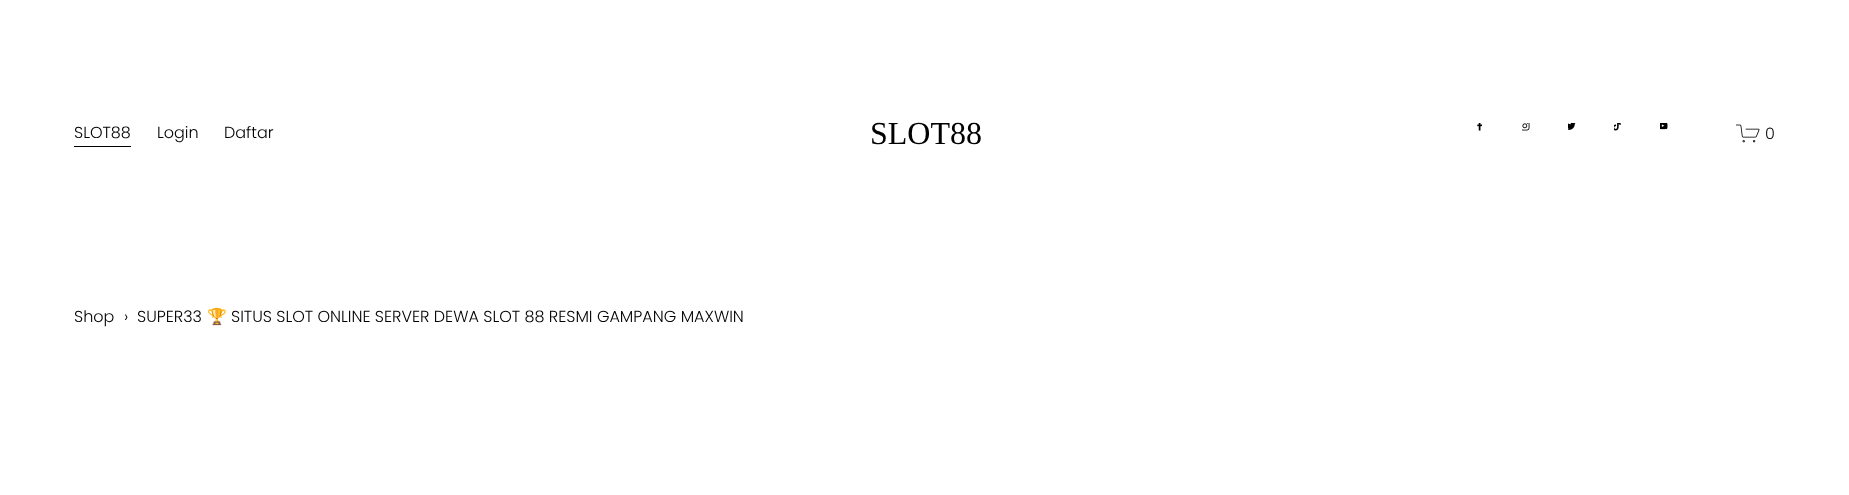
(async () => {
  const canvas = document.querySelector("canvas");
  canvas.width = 1849;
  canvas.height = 495;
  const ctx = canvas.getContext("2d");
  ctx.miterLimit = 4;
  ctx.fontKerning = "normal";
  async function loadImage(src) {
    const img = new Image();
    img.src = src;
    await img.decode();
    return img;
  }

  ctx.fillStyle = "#ffffff";
  ctx.fillRect(0, 0, 1849, 495);
  ctx.fillStyle = "#000000";
  ctx.fillRect(74, 146, 57, 1);
  ctx.drawImage(await loadImage("img/1.png"), 1477, 123, 6, 8);
  ctx.drawImage(await loadImage("img/2.png"), 1522, 123, 8, 8);
  ctx.drawImage(await loadImage("img/3.png"), 1568, 123, 8, 7);
  ctx.drawImage(await loadImage("img/4.png"), 1614, 123, 7, 8);
  ctx.drawImage(await loadImage("img/5.png"), 1660, 123, 8, 7);
  ctx.drawImage(await loadImage("img/6.png"), 1736, 124, 24, 19);
  ctx.font = "300 16px Poppins";
  for (const [text, x, y] of [
    ["SLOT88", 74, 138],
    ["Login", 157, 138],
    ["Daftar", 224, 138],
  ]) {
    ctx.fillText(text, x, y);
  }
  ctx.font = "32px Liberation Serif";
  ctx.fillText("SLOT88", 870, 144);
  ctx.font = "300 16px Poppins";
  for (const [text, x, y] of [
    ["0", 1765, 139],
    ["Shop", 74, 322],
    ["›", 124, 322],
    ["SUPER33", 137, 322],
  ]) {
    ctx.fillText(text, x, y);
  }
  ctx.font = "16px Noto Color Emoji";
  ctx.fillText("🏆", 207, 322);
  ctx.font = "300 16px Poppins";
  ctx.fillText("SITUS SLOT ONLINE SERVER DEWA SLOT 88 RESMI GAMPANG MAXWIN", 231, 322);
})();
